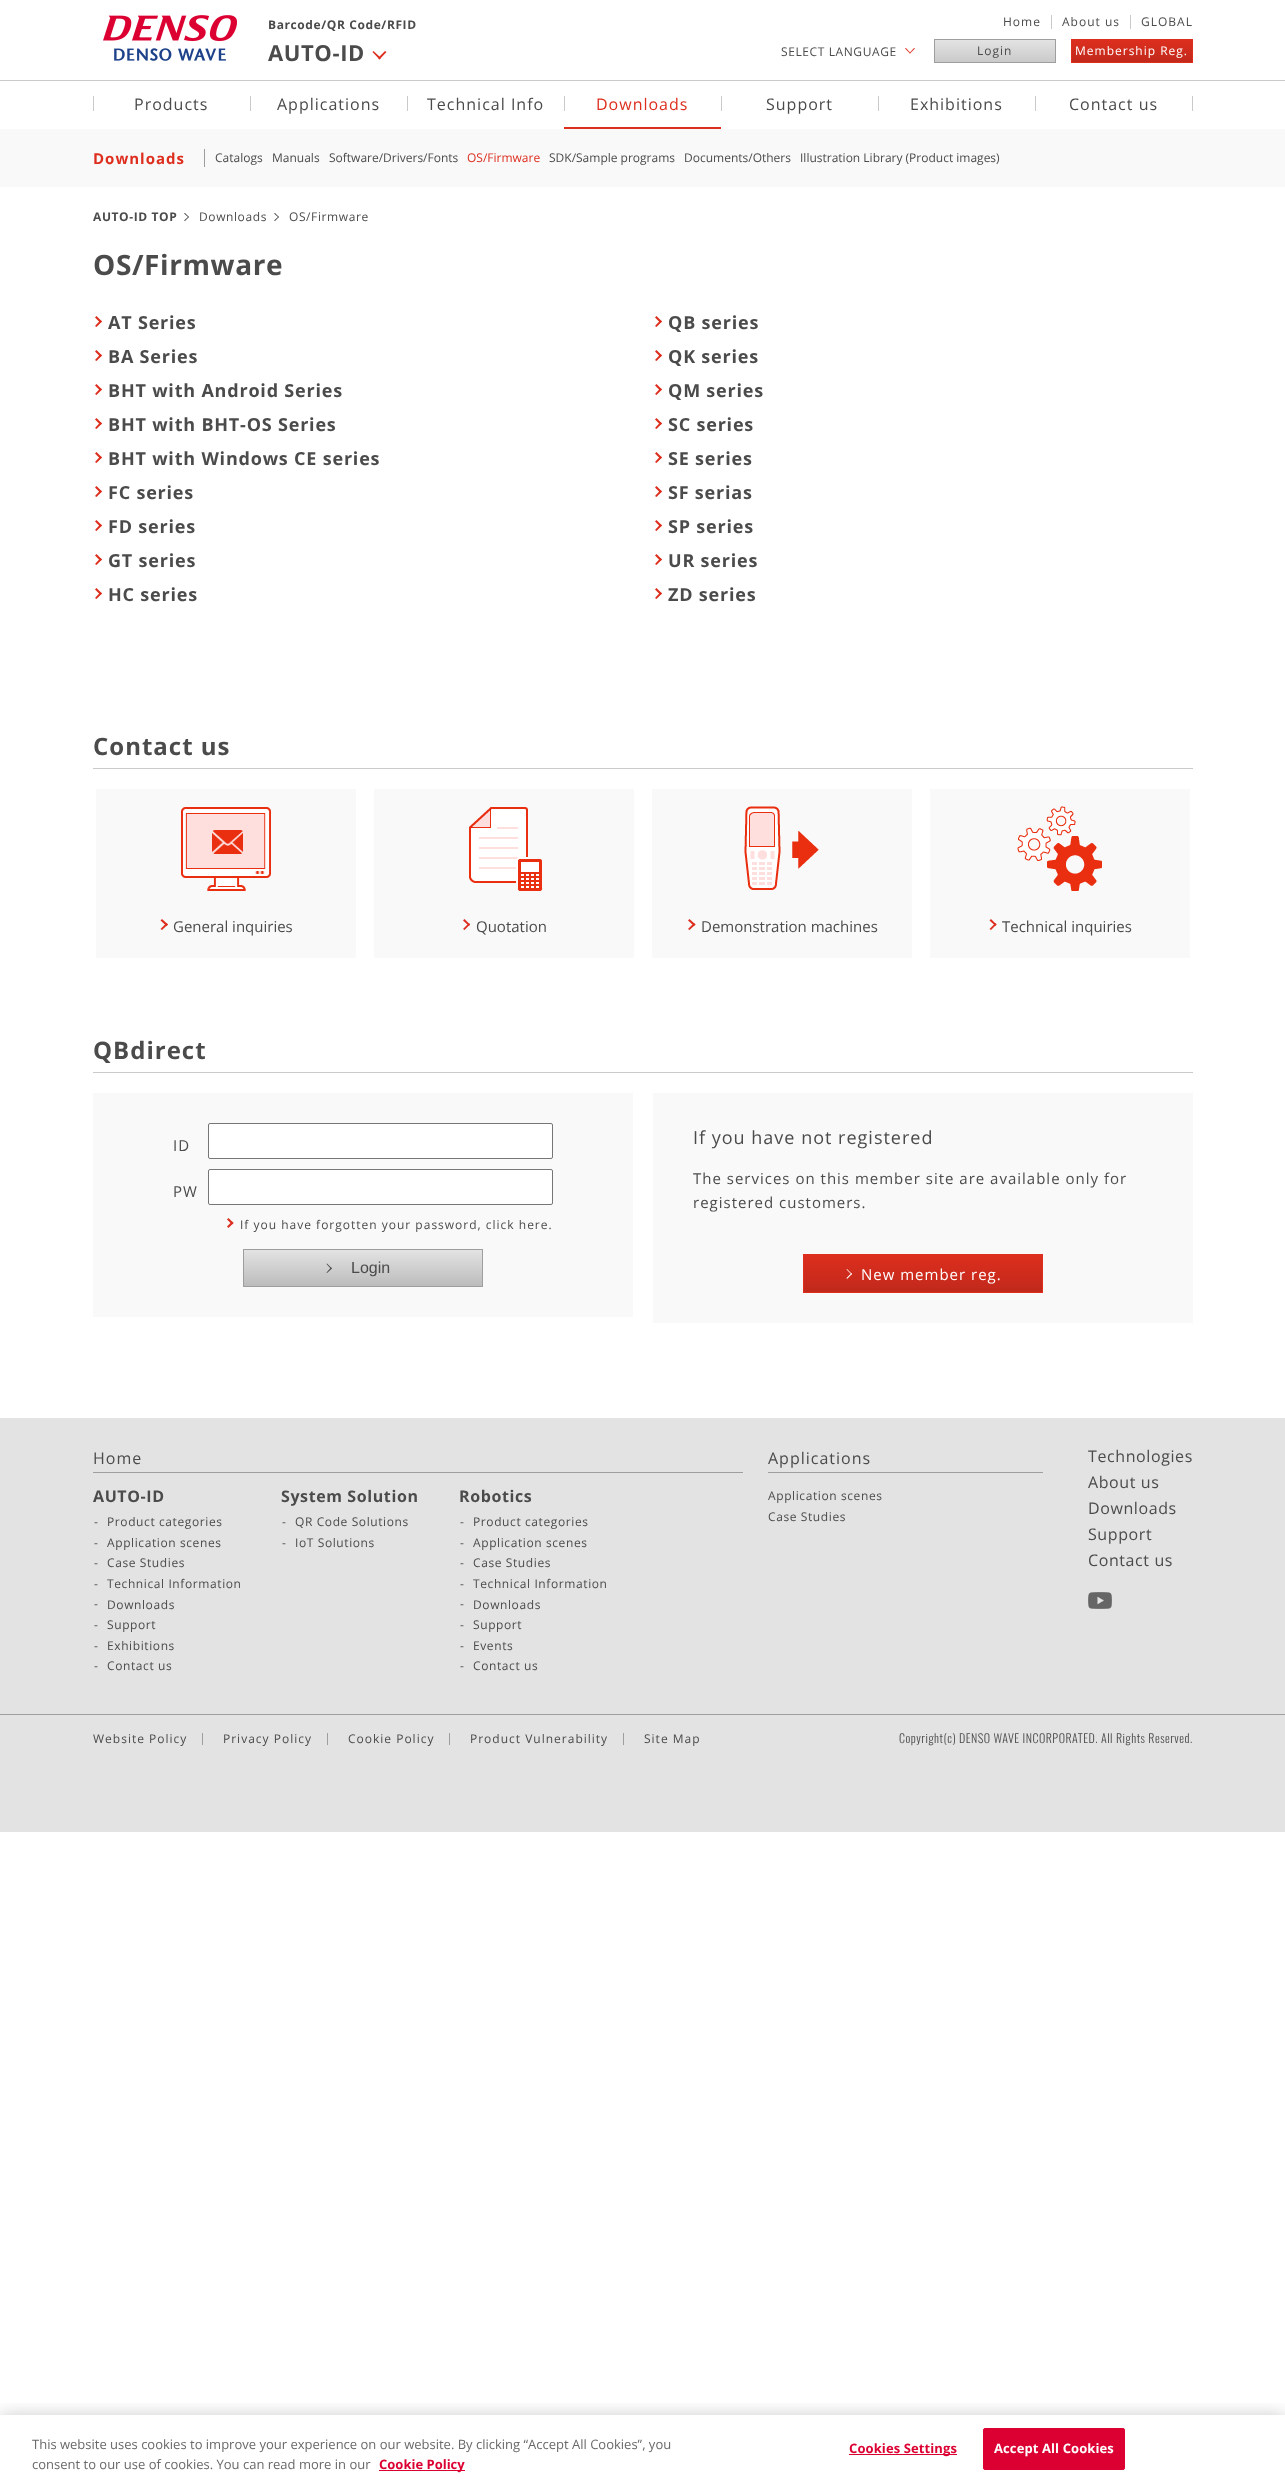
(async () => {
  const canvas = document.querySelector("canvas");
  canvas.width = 1285;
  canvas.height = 2486;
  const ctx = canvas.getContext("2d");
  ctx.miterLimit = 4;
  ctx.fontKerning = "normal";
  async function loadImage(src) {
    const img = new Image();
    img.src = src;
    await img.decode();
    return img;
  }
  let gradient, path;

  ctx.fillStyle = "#ffffff";
  ctx.fillRect(0, 0, 1285, 2486);
  ctx.fillStyle = "#dd2e1e";
  path = new Path2D("M386.5 52L379.5 59.5L378 58L385 51Z");
  ctx.fill(path);
  path = new Path2D("M381 58L379.5 59.5L372.5 52L373.5 51Z");
  ctx.fill(path);
  ctx.drawImage(await loadImage("img/1.png"), 103, 15, 134, 46);
  ctx.fillStyle = "#cacaca";
  ctx.fillRect(1051, 15, 1, 14);
  ctx.fillRect(1130, 15, 1, 14);
  ctx.fillStyle = "#dd2e1e";
  path = new Path2D("M915 48.5L910 53.5L909.5 53L914 48Z");
  ctx.fill(path);
  path = new Path2D("M910.5 53L910 53.5L905 48.5L906 48Z");
  ctx.fill(path);
  gradient = ctx.createLinearGradient(995, 40, 995, 62);
  gradient.addColorStop(0, "#e3e3e3");
  gradient.addColorStop(1, "#cacaca");
  ctx.fillStyle = gradient;
  ctx.fillRect(935, 40, 120, 22);
  ctx.strokeStyle = "#9e9e9e";
  ctx.strokeRect(934.5, 39.5, 121, 23);
  gradient = ctx.createLinearGradient(1132, 40, 1132, 62);
  gradient.addColorStop(0, "#dd2e1e");
  gradient.addColorStop(1, "#c1291b");
  ctx.fillStyle = gradient;
  ctx.fillRect(1072, 40, 120, 22);
  ctx.strokeStyle = "#dd2e1e";
  ctx.strokeRect(1071.5, 39.5, 121, 23);
  for (const [x, y, w, h, color] of [
    [0, 80, 1285, 1, "#cacaca"],
    [93, 96, 1, 15, "#cacaca"],
    [250, 96, 1, 15, "#cacaca"],
    [407, 96, 1, 15, "#cacaca"],
    [564, 96, 1, 15, "#cacaca"],
    [564, 127, 157, 2, "#dd2e1e"],
    [721, 96, 1, 15, "#cacaca"],
    [878, 96, 1, 15, "#cacaca"],
    [1035, 96, 1, 15, "#cacaca"],
    [1192, 96, 1, 15, "#cacaca"],
    [0, 129, 1285, 58, "#f9f9f9"],
    [204, 149, 1, 18, "#9e9e9e"],
  ]) {
    ctx.fillStyle = color;
    ctx.fillRect(x, y, w, h);
  }
  ctx.fillStyle = "#4b4b4b";
  path = new Path2D("M185 213L189 217L188.5 217.5L184 213.5Z");
  ctx.fill(path);
  path = new Path2D("M188.5 216.5L189 217L185 221L184 220.5Z");
  ctx.fill(path);
  path = new Path2D("M275 213L279 217L278.5 217.5L274 213.5Z");
  ctx.fill(path);
  path = new Path2D("M278.5 216.5L279 217L275 221L274 220.5Z");
  ctx.fill(path);
  ctx.fillStyle = "#dd2e1e";
  path = new Path2D("M96.5 316L102 321.5L100.5 323L95 317.5Z");
  ctx.fill(path);
  path = new Path2D("M100.5 320L102 321.5L96.5 327L95 326Z");
  ctx.fill(path);
  path = new Path2D("M656.5 316L662 321.5L660.5 323L655 317.5Z");
  ctx.fill(path);
  path = new Path2D("M660.5 320L662 321.5L656.5 327L655 326Z");
  ctx.fill(path);
  path = new Path2D("M96.5 350L102 355.5L100.5 357L95 351.5Z");
  ctx.fill(path);
  path = new Path2D("M100.5 354L102 355.5L96.5 361L95 360Z");
  ctx.fill(path);
  path = new Path2D("M656.5 350L662 355.5L660.5 357L655 351.5Z");
  ctx.fill(path);
  path = new Path2D("M660.5 354L662 355.5L656.5 361L655 360Z");
  ctx.fill(path);
  path = new Path2D("M96.5 384L102 389.5L100.5 391L95 385.5Z");
  ctx.fill(path);
  path = new Path2D("M100.5 388L102 389.5L96.5 395L95 394Z");
  ctx.fill(path);
  path = new Path2D("M656.5 384L662 389.5L660.5 391L655 385.5Z");
  ctx.fill(path);
  path = new Path2D("M660.5 388L662 389.5L656.5 395L655 394Z");
  ctx.fill(path);
  path = new Path2D("M96.5 418L102 423.5L100.5 425L95 419.5Z");
  ctx.fill(path);
  path = new Path2D("M100.5 422L102 423.5L96.5 429L95 428Z");
  ctx.fill(path);
  path = new Path2D("M656.5 418L662 423.5L660.5 425L655 419.5Z");
  ctx.fill(path);
  path = new Path2D("M660.5 422L662 423.5L656.5 429L655 428Z");
  ctx.fill(path);
  path = new Path2D("M96.5 452L102 457.5L100.5 459L95 453.5Z");
  ctx.fill(path);
  path = new Path2D("M100.5 456L102 457.5L96.5 463L95 462Z");
  ctx.fill(path);
  path = new Path2D("M656.5 452L662 457.5L660.5 459L655 453.5Z");
  ctx.fill(path);
  path = new Path2D("M660.5 456L662 457.5L656.5 463L655 462Z");
  ctx.fill(path);
  path = new Path2D("M96.5 486L102 491.5L100.5 493L95 487.5Z");
  ctx.fill(path);
  path = new Path2D("M100.5 490L102 491.5L96.5 497L95 496Z");
  ctx.fill(path);
  path = new Path2D("M656.5 486L662 491.5L660.5 493L655 487.5Z");
  ctx.fill(path);
  path = new Path2D("M660.5 490L662 491.5L656.5 497L655 496Z");
  ctx.fill(path);
  path = new Path2D("M96.5 520L102 525.5L100.5 527L95 521.5Z");
  ctx.fill(path);
  path = new Path2D("M100.5 524L102 525.5L96.5 531L95 530Z");
  ctx.fill(path);
  path = new Path2D("M656.5 520L662 525.5L660.5 527L655 521.5Z");
  ctx.fill(path);
  path = new Path2D("M660.5 524L662 525.5L656.5 531L655 530Z");
  ctx.fill(path);
  path = new Path2D("M96.5 554L102 559.5L100.5 561L95 555.5Z");
  ctx.fill(path);
  path = new Path2D("M100.5 558L102 559.5L96.5 565L95 564Z");
  ctx.fill(path);
  path = new Path2D("M656.5 554L662 559.5L660.5 561L655 555.5Z");
  ctx.fill(path);
  path = new Path2D("M660.5 558L662 559.5L656.5 565L655 564Z");
  ctx.fill(path);
  path = new Path2D("M96.5 588L102 593.5L100.5 595L95 589.5Z");
  ctx.fill(path);
  path = new Path2D("M100.5 592L102 593.5L96.5 599L95 598Z");
  ctx.fill(path);
  path = new Path2D("M656.5 588L662 593.5L660.5 595L655 589.5Z");
  ctx.fill(path);
  path = new Path2D("M660.5 592L662 593.5L656.5 599L655 598Z");
  ctx.fill(path);
  ctx.fillStyle = "#cacaca";
  ctx.fillRect(93, 768, 1100, 1);
  ctx.fillStyle = "#f9f9f9";
  ctx.fillRect(96, 789, 260, 169);
  ctx.drawImage(await loadImage("img/2.png"), 181, 807, 90, 84);
  ctx.fillStyle = "#dd2e1e";
  path = new Path2D("M162 919L168 924.5L166.5 926L160.5 920.5Z");
  ctx.fill(path);
  path = new Path2D("M166.5 923L168 924.5L162 930L160.5 929Z");
  ctx.fill(path);
  ctx.fillStyle = "#f9f9f9";
  ctx.fillRect(374, 789, 260, 169);
  ctx.drawImage(await loadImage("img/3.png"), 469, 807, 74, 84);
  ctx.fillStyle = "#dd2e1e";
  path = new Path2D("M464.5 919L470 924.5L469 926L463 920.5Z");
  ctx.fill(path);
  path = new Path2D("M469 923L470 924.5L464.5 930L463 929Z");
  ctx.fill(path);
  ctx.fillStyle = "#f9f9f9";
  ctx.fillRect(652, 789, 260, 169);
  ctx.drawImage(await loadImage("img/4.png"), 744, 806, 75, 84);
  ctx.fillStyle = "#dd2e1e";
  path = new Path2D("M689.5 919L695.5 924.5L694 926L688 920.5Z");
  ctx.fill(path);
  path = new Path2D("M694 923L695.5 924.5L689.5 930L688 929Z");
  ctx.fill(path);
  ctx.fillStyle = "#f9f9f9";
  ctx.fillRect(930, 789, 260, 169);
  ctx.drawImage(await loadImage("img/5.png"), 1017, 806, 85, 85);
  ctx.fillStyle = "#dd2e1e";
  path = new Path2D("M991 919L996.5 924.5L995.5 926L989.5 920.5Z");
  ctx.fill(path);
  path = new Path2D("M995.5 923L996.5 924.5L991 930L989.5 929Z");
  ctx.fill(path);
  ctx.fillStyle = "#cacaca";
  ctx.fillRect(93, 1072, 1100, 1);
  ctx.fillStyle = "#f9f9f9";
  ctx.fillRect(93, 1093, 540, 224);
  ctx.fillStyle = "#ffffff";
  ctx.beginPath();
  ctx.roundRect(208.5, 1123.5, 344, 35, 1.5);
  ctx.fill();
  ctx.strokeStyle = "#767676";
  ctx.stroke();
  ctx.beginPath();
  ctx.roundRect(208.5, 1169.5, 344, 35, 1.5);
  ctx.fill();
  ctx.stroke();
  ctx.fillStyle = "#dd2e1e";
  path = new Path2D("M228.5 1218L233.5 1223L232 1224.5L227 1219.5Z");
  ctx.fill(path);
  path = new Path2D("M232 1221.5L233.5 1223L228.5 1228L227 1226.5Z");
  ctx.fill(path);
  gradient = ctx.createLinearGradient(363, 1250, 363, 1286);
  gradient.addColorStop(0, "#e3e3e3");
  gradient.addColorStop(1, "#bcbcbc");
  ctx.fillStyle = gradient;
  ctx.fillRect(244, 1250, 238, 36);
  ctx.strokeStyle = "#9e9e9e";
  ctx.strokeRect(243.5, 1249.5, 239, 37);
  ctx.fillStyle = "#4b4b4b";
  path = new Path2D("M327 1263.5L332 1268.5L331 1269L326.5 1264Z");
  ctx.fill(path);
  path = new Path2D("M331 1267.5L332 1268.5L327 1273L326.5 1272.5Z");
  ctx.fill(path);
  ctx.fillStyle = "#f9f9f9";
  ctx.fillRect(653, 1093, 540, 230);
  gradient = ctx.createLinearGradient(923, 1255, 923, 1292);
  gradient.addColorStop(0, "#dd2e1e");
  gradient.addColorStop(1, "#c1291b");
  ctx.fillStyle = gradient;
  ctx.fillRect(804, 1255, 238, 37);
  ctx.strokeStyle = "#dd2e1e";
  ctx.strokeRect(803.5, 1254.5, 239, 38);
  ctx.fillStyle = "#ffffff";
  path = new Path2D("M847 1269L852 1274L851.5 1274.5L846.5 1269.5Z");
  ctx.fill(path);
  path = new Path2D("M851.5 1273L852 1274L847 1279L846.5 1278Z");
  ctx.fill(path);
  for (const [x, y, w, h, color] of [
    [0, 1418, 1285, 414, "#e3e3e3"],
    [93, 1472, 650, 1, "#9e9e9e"],
    [768, 1472, 275, 1, "#9e9e9e"],
  ]) {
    ctx.fillStyle = color;
    ctx.fillRect(x, y, w, h);
  }
  ctx.drawImage(await loadImage("img/6.png"), 1088, 1592, 24, 17);
  for (const [x, y, w, h, color] of [
    [0, 1714, 1285, 1, "#9e9e9e"],
    [202, 1733, 1, 12, "#9e9e9e"],
    [327, 1733, 1, 12, "#9e9e9e"],
    [449, 1733, 1, 12, "#9e9e9e"],
    [623, 1733, 1, 12, "#9e9e9e"],
  ]) {
    ctx.fillStyle = color;
    ctx.fillRect(x, y, w, h);
  }
  ctx.save();
  ctx.beginPath();
  ctx.rect(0, 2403, 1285, 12);
  ctx.clip();
  ctx.fillStyle = "rgba(0, 0, 0, 0.2)";
  ctx.filter = "blur(9px)";
  ctx.beginPath();
  ctx.rect(0, 2415, 1285, 71);
  ctx.fill();
  ctx.filter = "none";
  ctx.restore();
  ctx.fillStyle = "#dc0032";
  ctx.fillRect(379, 2470, 86, 1);
  ctx.fillRect(849, 2454, 108, 1);
  ctx.beginPath();
  ctx.roundRect(983.5, 2428.5, 141, 41, 1.5);
  ctx.fill();
  ctx.strokeStyle = "#dc0032";
  ctx.stroke();
  ctx.letterSpacing = "0.6px";
  ctx.font = "bold 12px Open Sans";
  ctx.fillStyle = "#4b4b4b";
  ctx.fillText("Barcode/QR Code/RFID", 268, 29);
  ctx.font = "bold 22px Open Sans";
  ctx.fillText("AUTO-ID", 268, 61);
  ctx.letterSpacing = "1px";
  ctx.font = "12px Open Sans";
  for (const [text, x, y] of [
    ["Home", 1003, 26],
    ["About us", 1062, 26],
    ["GLOBAL", 1141, 26],
  ]) {
    ctx.fillText(text, x, y);
  }
  ctx.letterSpacing = "0.6px";
  ctx.fillText("SELECT LANGUAGE", 781, 56);
  ctx.letterSpacing = "1px";
  ctx.fillText("Login", 977, 55);
  ctx.fillStyle = "#ffffff";
  ctx.fillText("Membership Reg.", 1075, 55);
  ctx.font = "16px Open Sans";
  ctx.fillStyle = "#4b4b4b";
  for (const [text, x, y] of [
    ["Products", 134, 110],
    ["Applications", 277, 110],
    ["Technical Info", 427, 110],
  ]) {
    ctx.fillText(text, x, y);
  }
  ctx.fillStyle = "#dd2e1e";
  ctx.fillText("Downloads", 596, 110);
  ctx.fillStyle = "#4b4b4b";
  for (const [text, x, y] of [
    ["Support", 766, 110],
    ["Exhibitions", 910, 110],
    ["Contact us", 1069, 110],
  ]) {
    ctx.fillText(text, x, y);
  }
  ctx.font = "bold 15px Open Sans";
  ctx.fillStyle = "#dd2e1e";
  ctx.fillText("Downloads", 93, 164);
  ctx.letterSpacing = "0px";
  ctx.font = "12px Open Sans";
  ctx.fillStyle = "#4b4b4b";
  for (const [text, x, y] of [
    ["Catalogs", 215, 162],
    ["Manuals", 272, 162],
    ["Software/Drivers/Fonts", 329, 162],
  ]) {
    ctx.fillText(text, x, y);
  }
  ctx.fillStyle = "#dd2e1e";
  ctx.fillText("OS/Firmware", 467, 162);
  ctx.fillStyle = "#4b4b4b";
  for (const [text, x, y] of [
    ["SDK/Sample programs", 549, 162],
    ["Documents/Others", 684, 162],
    ["Illustration Library (Product images)", 800, 162],
  ]) {
    ctx.fillText(text, x, y);
  }
  ctx.letterSpacing = "0.6px";
  ctx.font = "bold 12px Open Sans";
  ctx.fillText("AUTO-ID TOP", 93, 221);
  ctx.font = "12px Open Sans";
  ctx.fillText("Downloads", 199, 221);
  ctx.fillText("OS/Firmware", 289, 221);
  ctx.font = "bold 28px Open Sans";
  ctx.fillText("OS/Firmware", 93, 275);
  ctx.letterSpacing = "0.8px";
  ctx.font = "bold 18px Open Sans";
  for (const [text, x, y] of [
    ["AT Series", 108, 329],
    ["QB series", 668, 329],
    ["BA Series", 108, 363],
    ["QK series", 668, 363],
    ["BHT with Android Series", 108, 397],
    ["QM series", 668, 397],
    ["BHT with BHT-OS Series", 108, 431],
    ["SC series", 668, 431],
    ["BHT with Windows CE series", 108, 465],
    ["SE series", 668, 465],
    ["FC series", 108, 499],
    ["SF serias", 668, 499],
    ["FD series", 108, 533],
    ["SP series", 668, 533],
    ["GT series", 108, 567],
    ["UR series", 668, 567],
    ["HC series", 108, 601],
    ["ZD series", 668, 601],
  ]) {
    ctx.fillText(text, x, y);
  }
  ctx.letterSpacing = "1px";
  ctx.font = "bold 24px Open Sans";
  ctx.fillText("Contact us", 93, 755);
  ctx.letterSpacing = "0px";
  ctx.font = "15px Open Sans";
  for (const [text, x, y] of [
    ["General inquiries", 173, 932],
    ["Quotation", 476, 932],
    ["Demonstration machines", 701, 932],
    ["Technical inquiries", 1002, 932],
  ]) {
    ctx.fillText(text, x, y);
  }
  ctx.letterSpacing = "1px";
  ctx.font = "bold 24px Open Sans";
  ctx.fillText("QBdirect", 93, 1059);
  ctx.font = "15px Open Sans";
  ctx.fillText("ID", 173, 1151);
  ctx.fillText("PW", 173, 1197);
  ctx.font = "12px Open Sans";
  ctx.fillText("If you have forgotten your password, click here.", 240, 1229);
  ctx.letterSpacing = "0px";
  ctx.font = "16px Liberation Sans";
  ctx.fillText("Login", 351, 1273);
  ctx.letterSpacing = "1px";
  ctx.font = "18px Open Sans";
  ctx.fillText("If you have not registered", 693, 1144);
  ctx.font = "15px Open Sans";
  ctx.fillText("The services on this member site are available only for", 693, 1184);
  ctx.fillText("registered customers.", 693, 1208);
  ctx.fillStyle = "#ffffff";
  ctx.fillText("New member reg.", 861, 1280);
  ctx.font = "16px Open Sans";
  ctx.fillStyle = "#4b4b4b";
  ctx.fillText("Home", 93, 1464);
  ctx.letterSpacing = "0.6px";
  ctx.font = "bold 16px Open Sans";
  ctx.fillText("AUTO-ID", 93, 1502);
  ctx.font = "12px Open Sans";
  for (const [text, x, y] of [
    ["-", 94, 1526],
    ["Product categories", 107, 1526],
    ["-", 94, 1547],
    ["Application scenes", 107, 1547],
    ["-", 94, 1567],
    ["Case Studies", 107, 1567],
    ["-", 94, 1588],
    ["Technical Information", 107, 1588],
    ["-", 94, 1608],
    ["Downloads", 107, 1609],
    ["-", 94, 1629],
    ["Support", 107, 1629],
    ["-", 94, 1650],
    ["Exhibitions", 107, 1650],
    ["-", 94, 1670],
    ["Contact us", 107, 1670],
  ]) {
    ctx.fillText(text, x, y);
  }
  ctx.font = "bold 16px Open Sans";
  ctx.fillText("System Solution", 281, 1502);
  ctx.font = "12px Open Sans";
  for (const [text, x, y] of [
    ["-", 282, 1526],
    ["QR Code Solutions", 295, 1526],
    ["-", 282, 1547],
    ["IoT Solutions", 295, 1547],
  ]) {
    ctx.fillText(text, x, y);
  }
  ctx.font = "bold 16px Open Sans";
  ctx.fillText("Robotics", 459, 1502);
  ctx.font = "12px Open Sans";
  for (const [text, x, y] of [
    ["-", 460, 1526],
    ["Product categories", 473, 1526],
    ["-", 460, 1547],
    ["Application scenes", 473, 1547],
    ["-", 460, 1567],
    ["Case Studies", 473, 1567],
    ["-", 460, 1588],
    ["Technical Information", 473, 1588],
    ["-", 460, 1608],
    ["Downloads", 473, 1609],
    ["-", 460, 1629],
    ["Support", 473, 1629],
    ["-", 460, 1650],
    ["Events", 473, 1650],
    ["-", 460, 1670],
    ["Contact us", 473, 1670],
  ]) {
    ctx.fillText(text, x, y);
  }
  ctx.letterSpacing = "1px";
  ctx.font = "16px Open Sans";
  ctx.fillText("Applications", 768, 1464);
  ctx.letterSpacing = "0.6px";
  ctx.font = "12px Open Sans";
  ctx.fillText("Application scenes", 768, 1500);
  ctx.fillText("Case Studies", 768, 1521);
  ctx.font = "16px Open Sans";
  for (const [text, x, y] of [
    ["Technologies", 1088, 1462],
    ["About us", 1088, 1488],
    ["Downloads", 1088, 1514],
    ["Support", 1088, 1540],
    ["Contact us", 1088, 1566],
  ]) {
    ctx.fillText(text, x, y);
  }
  ctx.letterSpacing = "1px";
  ctx.font = "12px Open Sans";
  for (const [text, x, y] of [
    ["Website Policy", 93, 1743],
    ["Privacy Policy", 223, 1743],
    ["Cookie Policy", 348, 1743],
    ["Product Vulnerability", 470, 1743],
    ["Site Map", 644, 1743],
  ]) {
    ctx.fillText(text, x, y);
  }
  ctx.letterSpacing = "0.5px";
  ctx.font = "300 12px Oswald";
  ctx.fillText("Copyright(c) DENSO WAVE INCORPORATED. All Rights Reserved.", 899, 1743);
  ctx.letterSpacing = "0px";
  ctx.font = "13px Open Sans";
  ctx.fillStyle = "#696969";
  ctx.fillText("This website uses cookies to improve your experience on our website. By clicking “Accept All Cookies”, you", 32, 2449);
  ctx.fillText("consent to our use of cookies. You can read more in our", 32, 2469);
  ctx.font = "bold 13px Open Sans";
  ctx.fillStyle = "#dc0032";
  ctx.fillText("Cookie Policy", 379, 2469);
  ctx.letterSpacing = "0.1px";
  ctx.fillText("Cookies Settings", 849, 2453);
  ctx.fillStyle = "#ffffff";
  ctx.fillText("Accept All Cookies", 994, 2453);
})();
